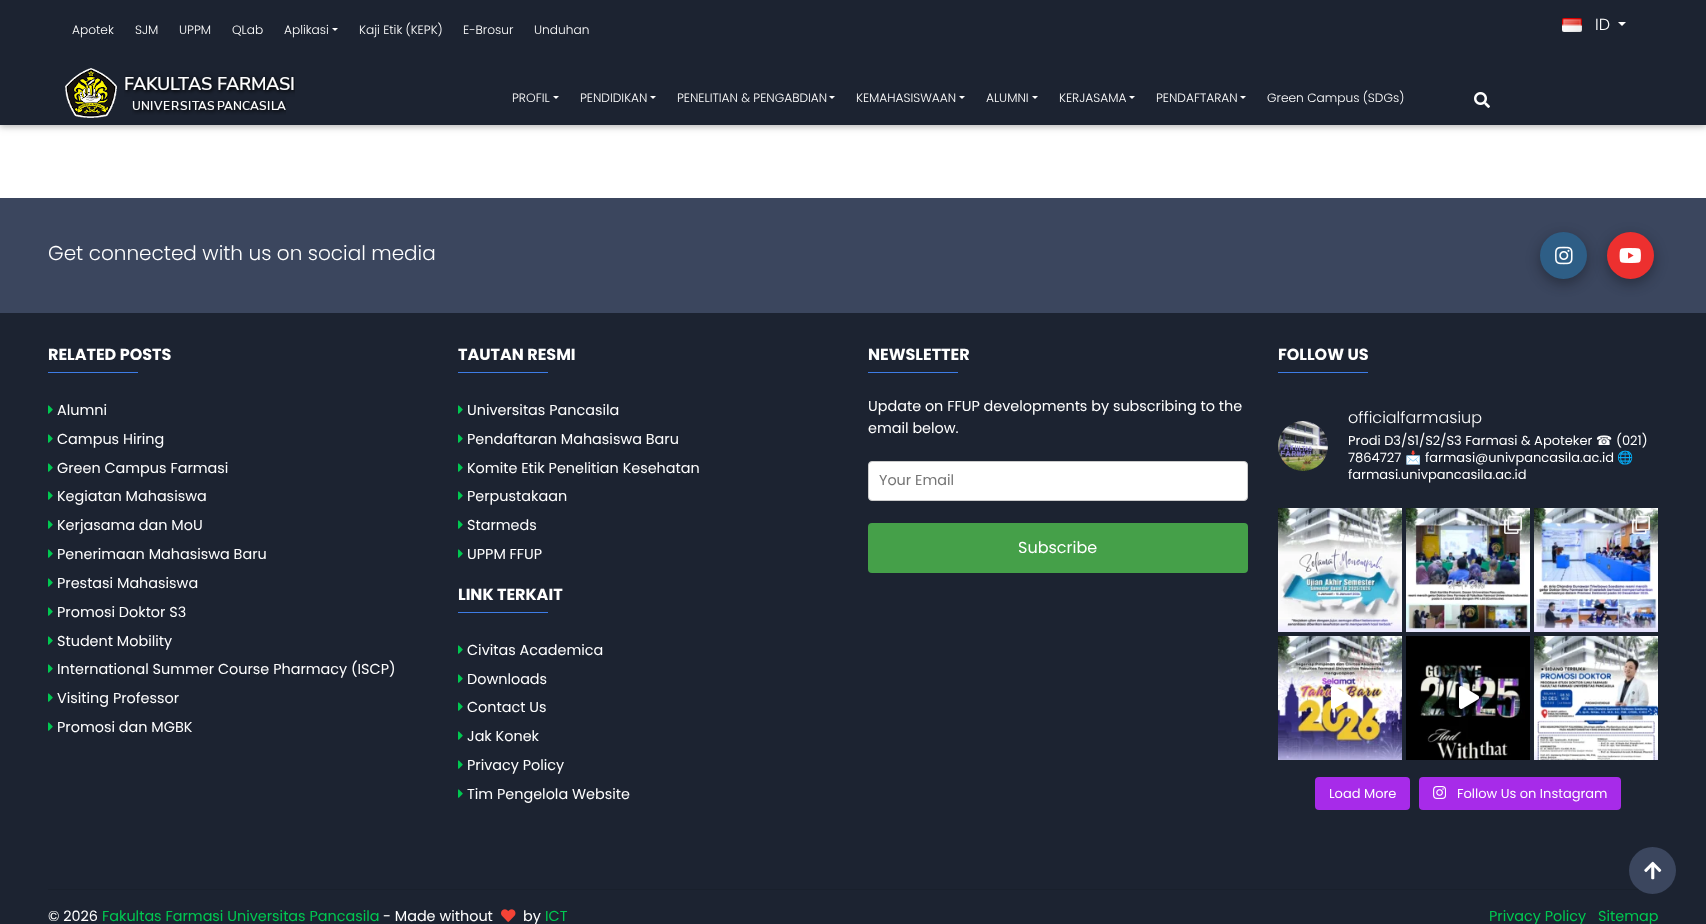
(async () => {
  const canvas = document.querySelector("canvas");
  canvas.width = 1706;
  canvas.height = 924;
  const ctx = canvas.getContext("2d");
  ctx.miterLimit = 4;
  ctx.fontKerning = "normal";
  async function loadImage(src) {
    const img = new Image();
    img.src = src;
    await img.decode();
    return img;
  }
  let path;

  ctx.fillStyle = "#ffffff";
  ctx.fillRect(0, 0, 1706, 924);
  ctx.fillStyle = "rgba(0, 0, 0, 0.12)";
  ctx.filter = "blur(5px)";
  ctx.beginPath();
  ctx.rect(0, 2, 1706, 125);
  ctx.fill();
  ctx.filter = "none";
  ctx.fillStyle = "rgba(0, 0, 0, 0.16)";
  ctx.filter = "blur(2.5px)";
  ctx.beginPath();
  ctx.rect(0, 2, 1706, 125);
  ctx.fill();
  ctx.filter = "none";
  ctx.fillStyle = "#1c2331";
  ctx.fillRect(0, 0, 1706, 125);
  ctx.fillStyle = "#ffffff";
  path = new Path2D("M332 28H338L335 31Z");
  ctx.fill(path);
  ctx.drawImage(await loadImage("img/1.png"), 1562, 18, 20, 14);
  path = new Path2D("M1618 22H1626L1622 26Z");
  ctx.fill(path);
  ctx.drawImage(await loadImage("img/2.png"), 65, 68, 230, 50);
  path = new Path2D("M553 96H559L556 99Z");
  ctx.fill(path);
  path = new Path2D("M650 96H656L653 99Z");
  ctx.fill(path);
  path = new Path2D("M829 96H835L832 99Z");
  ctx.fill(path);
  path = new Path2D("M959 96H965L962 99Z");
  ctx.fill(path);
  path = new Path2D("M1032 96H1038L1035 99Z");
  ctx.fill(path);
  path = new Path2D("M1129 96H1135L1132 99Z");
  ctx.fill(path);
  path = new Path2D("M1240 96H1246L1243 99Z");
  ctx.fill(path);
  ctx.drawImage(await loadImage("img/3.png"), 1474, 92, 16, 16);
  ctx.fillStyle = "#1c2331";
  ctx.fillRect(0, 313, 1706, 611);
  ctx.fillStyle = "#3b465e";
  ctx.fillRect(0, 198, 1706, 115);
  ctx.fillStyle = "rgba(0, 0, 0, 0.15)";
  ctx.filter = "blur(7.5px)";
  ctx.beginPath();
  ctx.roundRect(1540, 236, 47, 47, 23.5);
  ctx.fill();
  ctx.filter = "none";
  ctx.fillStyle = "rgba(0, 0, 0, 0.18)";
  ctx.filter = "blur(5.5px)";
  ctx.beginPath();
  ctx.roundRect(1540, 237, 47, 47, 23.5);
  ctx.fill();
  ctx.filter = "none";
  ctx.fillStyle = "#2e5e86";
  ctx.beginPath();
  ctx.arc(1563.5, 255.5, 23.5, 0, Math.PI * 2);
  ctx.fill();
  ctx.drawImage(await loadImage("img/4.png"), 1555, 246, 18, 19);
  ctx.fillStyle = "rgba(0, 0, 0, 0.15)";
  ctx.filter = "blur(7.5px)";
  ctx.beginPath();
  ctx.roundRect(1607, 236, 47, 47, 23.5);
  ctx.fill();
  ctx.filter = "none";
  ctx.fillStyle = "rgba(0, 0, 0, 0.18)";
  ctx.filter = "blur(5.5px)";
  ctx.beginPath();
  ctx.roundRect(1607, 237, 47, 47, 23.5);
  ctx.fill();
  ctx.filter = "none";
  ctx.fillStyle = "#ed302f";
  ctx.beginPath();
  ctx.arc(1630.5, 255.5, 23.5, 0, Math.PI * 2);
  ctx.fill();
  ctx.drawImage(await loadImage("img/5.png"), 1619, 248, 22, 15);
  ctx.fillStyle = "#3d7ce6";
  ctx.fillRect(48, 372, 90, 1);
  ctx.drawImage(await loadImage("img/6.png"), 48, 405, 5, 9);
  ctx.drawImage(await loadImage("img/6.png"), 48, 434, 5, 9);
  ctx.drawImage(await loadImage("img/6.png"), 48, 463, 5, 9);
  ctx.drawImage(await loadImage("img/6.png"), 48, 491, 5, 9);
  ctx.drawImage(await loadImage("img/6.png"), 48, 520, 5, 9);
  ctx.drawImage(await loadImage("img/6.png"), 48, 549, 5, 9);
  ctx.drawImage(await loadImage("img/6.png"), 48, 578, 5, 9);
  ctx.drawImage(await loadImage("img/6.png"), 48, 607, 5, 9);
  ctx.drawImage(await loadImage("img/6.png"), 48, 636, 5, 9);
  ctx.drawImage(await loadImage("img/6.png"), 48, 664, 5, 9);
  ctx.drawImage(await loadImage("img/6.png"), 48, 693, 5, 9);
  ctx.drawImage(await loadImage("img/6.png"), 48, 722, 5, 9);
  ctx.fillRect(458, 372, 90, 1);
  ctx.drawImage(await loadImage("img/6.png"), 458, 405, 5, 9);
  ctx.drawImage(await loadImage("img/6.png"), 458, 434, 5, 9);
  ctx.drawImage(await loadImage("img/6.png"), 458, 463, 5, 9);
  ctx.drawImage(await loadImage("img/6.png"), 458, 491, 5, 9);
  ctx.drawImage(await loadImage("img/6.png"), 458, 520, 5, 9);
  ctx.drawImage(await loadImage("img/6.png"), 458, 549, 5, 9);
  ctx.fillRect(458, 612, 90, 1);
  ctx.drawImage(await loadImage("img/6.png"), 458, 645, 5, 9);
  ctx.drawImage(await loadImage("img/6.png"), 458, 674, 5, 9);
  ctx.drawImage(await loadImage("img/6.png"), 458, 702, 5, 9);
  ctx.drawImage(await loadImage("img/6.png"), 458, 731, 5, 9);
  ctx.drawImage(await loadImage("img/6.png"), 458, 760, 5, 9);
  ctx.drawImage(await loadImage("img/6.png"), 458, 789, 5, 9);
  ctx.fillRect(868, 372, 90, 1);
  ctx.fillStyle = "#ffffff";
  ctx.beginPath();
  ctx.roundRect(868.5, 461.5, 379, 39, 3.5);
  ctx.fill();
  ctx.strokeStyle = "#cccccc";
  ctx.stroke();
  ctx.fillStyle = "#45a049";
  ctx.beginPath();
  ctx.roundRect(868, 523, 380, 50, 4);
  ctx.fill();
  ctx.fillStyle = "#3d7ce6";
  ctx.fillRect(1278, 372, 90, 1);
  ctx.drawImage(await loadImage("img/7.png"), 1278, 421, 50, 50);
  ctx.drawImage(await loadImage("img/8.png"), 1278, 508, 124, 124);
  ctx.drawImage(await loadImage("img/9.png"), 1406, 508, 124, 124);
  ctx.drawImage(await loadImage("img/10.png"), 1504, 516, 18, 18);
  ctx.drawImage(await loadImage("img/11.png"), 1534, 508, 124, 124);
  ctx.drawImage(await loadImage("img/12.png"), 1632, 516, 18, 18);
  ctx.drawImage(await loadImage("img/13.png"), 1278, 636, 124, 124);
  ctx.drawImage(await loadImage("img/14.png"), 1331, 686, 20, 23);
  ctx.drawImage(await loadImage("img/15.png"), 1406, 636, 124, 124);
  ctx.drawImage(await loadImage("img/16.png"), 1459, 686, 20, 23);
  ctx.drawImage(await loadImage("img/17.png"), 1534, 636, 124, 124);
  ctx.fillStyle = "#a72be9";
  ctx.beginPath();
  ctx.roundRect(1315, 777, 95, 33, 4);
  ctx.fill();
  ctx.beginPath();
  ctx.roundRect(1419, 777, 202, 33, 4);
  ctx.fill();
  ctx.drawImage(await loadImage("img/18.png"), 1433, 786, 13, 13);
  ctx.fillStyle = "#19202c";
  ctx.fillRect(48, 889, 1592, 1);
  ctx.drawImage(await loadImage("img/19.png"), 501, 909, 15, 13);
  ctx.fillStyle = "#3b465e";
  ctx.beginPath();
  ctx.arc(1652.5, 870.5, 23.5, 0, Math.PI * 2);
  ctx.fill();
  ctx.drawImage(await loadImage("img/20.png"), 1644, 861, 18, 19);
  ctx.font = "300 12.2px Poppins";
  ctx.fillStyle = "#ffffff";
  for (const [text, x, y] of [
    ["Apotek", 72, 34],
    ["SJM", 135, 34],
    ["UPPM", 179, 34],
    ["QLab", 232, 34],
    ["Aplikasi", 284, 34],
    ["Kaji Etik (KEPK)", 359, 34],
    ["E-Brosur", 463, 34],
    ["Unduhan", 534, 34],
  ]) {
    ctx.fillText(text, x, y);
  }
  ctx.font = "300 16px Poppins";
  ctx.fillText("ID", 1595, 30);
  ctx.font = "300 12.2px Poppins";
  for (const [text, x, y] of [
    ["PROFIL", 512, 102],
    ["PENDIDIKAN", 580, 102],
    ["PENELITIAN & PENGABDIAN", 677, 102],
    ["KEMAHASISWAAN", 856, 102],
    ["ALUMNI", 986, 102],
    ["KERJASAMA", 1059, 102],
    ["PENDAFTARAN", 1156, 102],
    ["Green Campus (SDGs)", 1267, 102],
  ]) {
    ctx.fillText(text, x, y);
  }
  ctx.font = "300 20px Poppins";
  ctx.fillText("Get connected with us on social media", 48, 260);
  ctx.font = "bold 16px Poppins";
  ctx.fillText("RELATED POSTS", 48, 360);
  ctx.font = "14.4px Poppins";
  for (const [text, x, y] of [
    ["Alumni", 57, 415],
    ["Campus Hiring", 57, 444],
    ["Green Campus Farmasi", 57, 473],
    ["Kegiatan Mahasiswa", 57, 501],
    ["Kerjasama dan MoU", 57, 530],
    ["Penerimaan Mahasiswa Baru", 57, 559],
    ["Prestasi Mahasiswa", 57, 588],
    ["Promosi Doktor S3", 57, 617],
    ["Student Mobility", 57, 646],
    ["International Summer Course Pharmacy (ISCP)", 57, 674],
    ["Visiting Professor", 57, 703],
    ["Promosi dan MGBK", 57, 732],
  ]) {
    ctx.fillText(text, x, y);
  }
  ctx.font = "bold 16px Poppins";
  ctx.fillText("TAUTAN RESMI", 458, 360);
  ctx.font = "14.4px Poppins";
  for (const [text, x, y] of [
    ["Universitas Pancasila", 467, 415],
    ["Pendaftaran Mahasiswa Baru", 467, 444],
    ["Komite Etik Penelitian Kesehatan", 467, 473],
    ["Perpustakaan", 467, 501],
    ["Starmeds", 467, 530],
    ["UPPM FFUP", 467, 559],
  ]) {
    ctx.fillText(text, x, y);
  }
  ctx.font = "bold 16px Poppins";
  ctx.fillText("LINK TERKAIT", 458, 600);
  ctx.font = "14.4px Poppins";
  for (const [text, x, y] of [
    ["Civitas Academica", 467, 655],
    ["Downloads", 467, 684],
    ["Contact Us", 467, 712],
    ["Jak Konek", 467, 741],
    ["Privacy Policy", 467, 770],
    ["Tim Pengelola Website", 467, 799],
  ]) {
    ctx.fillText(text, x, y);
  }
  ctx.font = "bold 16px Poppins";
  ctx.fillText("NEWSLETTER", 868, 360);
  ctx.font = "14.4px Poppins";
  ctx.fillText("Update on FFUP developments by subscribing to the", 868, 411);
  ctx.fillText("email below.", 868, 433);
  ctx.fillStyle = "#757575";
  ctx.fillText("Your Email", 879, 485);
  ctx.font = "16px Poppins";
  ctx.fillStyle = "#ffffff";
  ctx.fillText("Subscribe", 1018, 553);
  ctx.font = "bold 16px Poppins";
  ctx.fillText("FOLLOW US", 1278, 360);
  ctx.font = "300 16px Poppins";
  ctx.fillText("officialfarmasiup", 1348, 423);
  ctx.font = "13px Poppins";
  ctx.fillText("Prodi D3/S1/S2/S3 Farmasi & Apoteker", 1348, 445);
  ctx.font = "13px DejaVu Sans";
  ctx.fillText("☎", 1596, 445);
  ctx.font = "13px Poppins";
  ctx.fillText("(021)", 1616, 445);
  ctx.fillText("7864727", 1348, 462);
  ctx.font = "13px Noto Color Emoji";
  ctx.fillText("📩", 1405, 462);
  ctx.font = "13px Poppins";
  ctx.fillText("farmasi@univpancasila.ac.id", 1425, 462);
  ctx.font = "13px Noto Color Emoji";
  ctx.fillText("🌐", 1617, 462);
  ctx.font = "13px Poppins";
  for (const [text, x, y] of [
    ["farmasi.univpancasila.ac.id", 1348, 479],
    ["Load More", 1329, 798],
    ["Follow Us on Instagram", 1457, 798],
  ]) {
    ctx.fillText(text, x, y);
  }
  ctx.font = "14.4px Poppins";
  ctx.fillText("© 2026", 48, 921);
  ctx.fillStyle = "#00c851";
  ctx.fillText("Fakultas Farmasi Universitas Pancasila", 102, 921);
  ctx.fillStyle = "#ffffff";
  ctx.fillText("- Made without", 383, 921);
  ctx.fillText("by", 523, 921);
  ctx.fillStyle = "#00c851";
  for (const [text, x, y] of [
    ["ICT", 545, 921],
    ["Privacy Policy", 1489, 921],
    ["Sitemap", 1598, 921],
  ]) {
    ctx.fillText(text, x, y);
  }
})();
